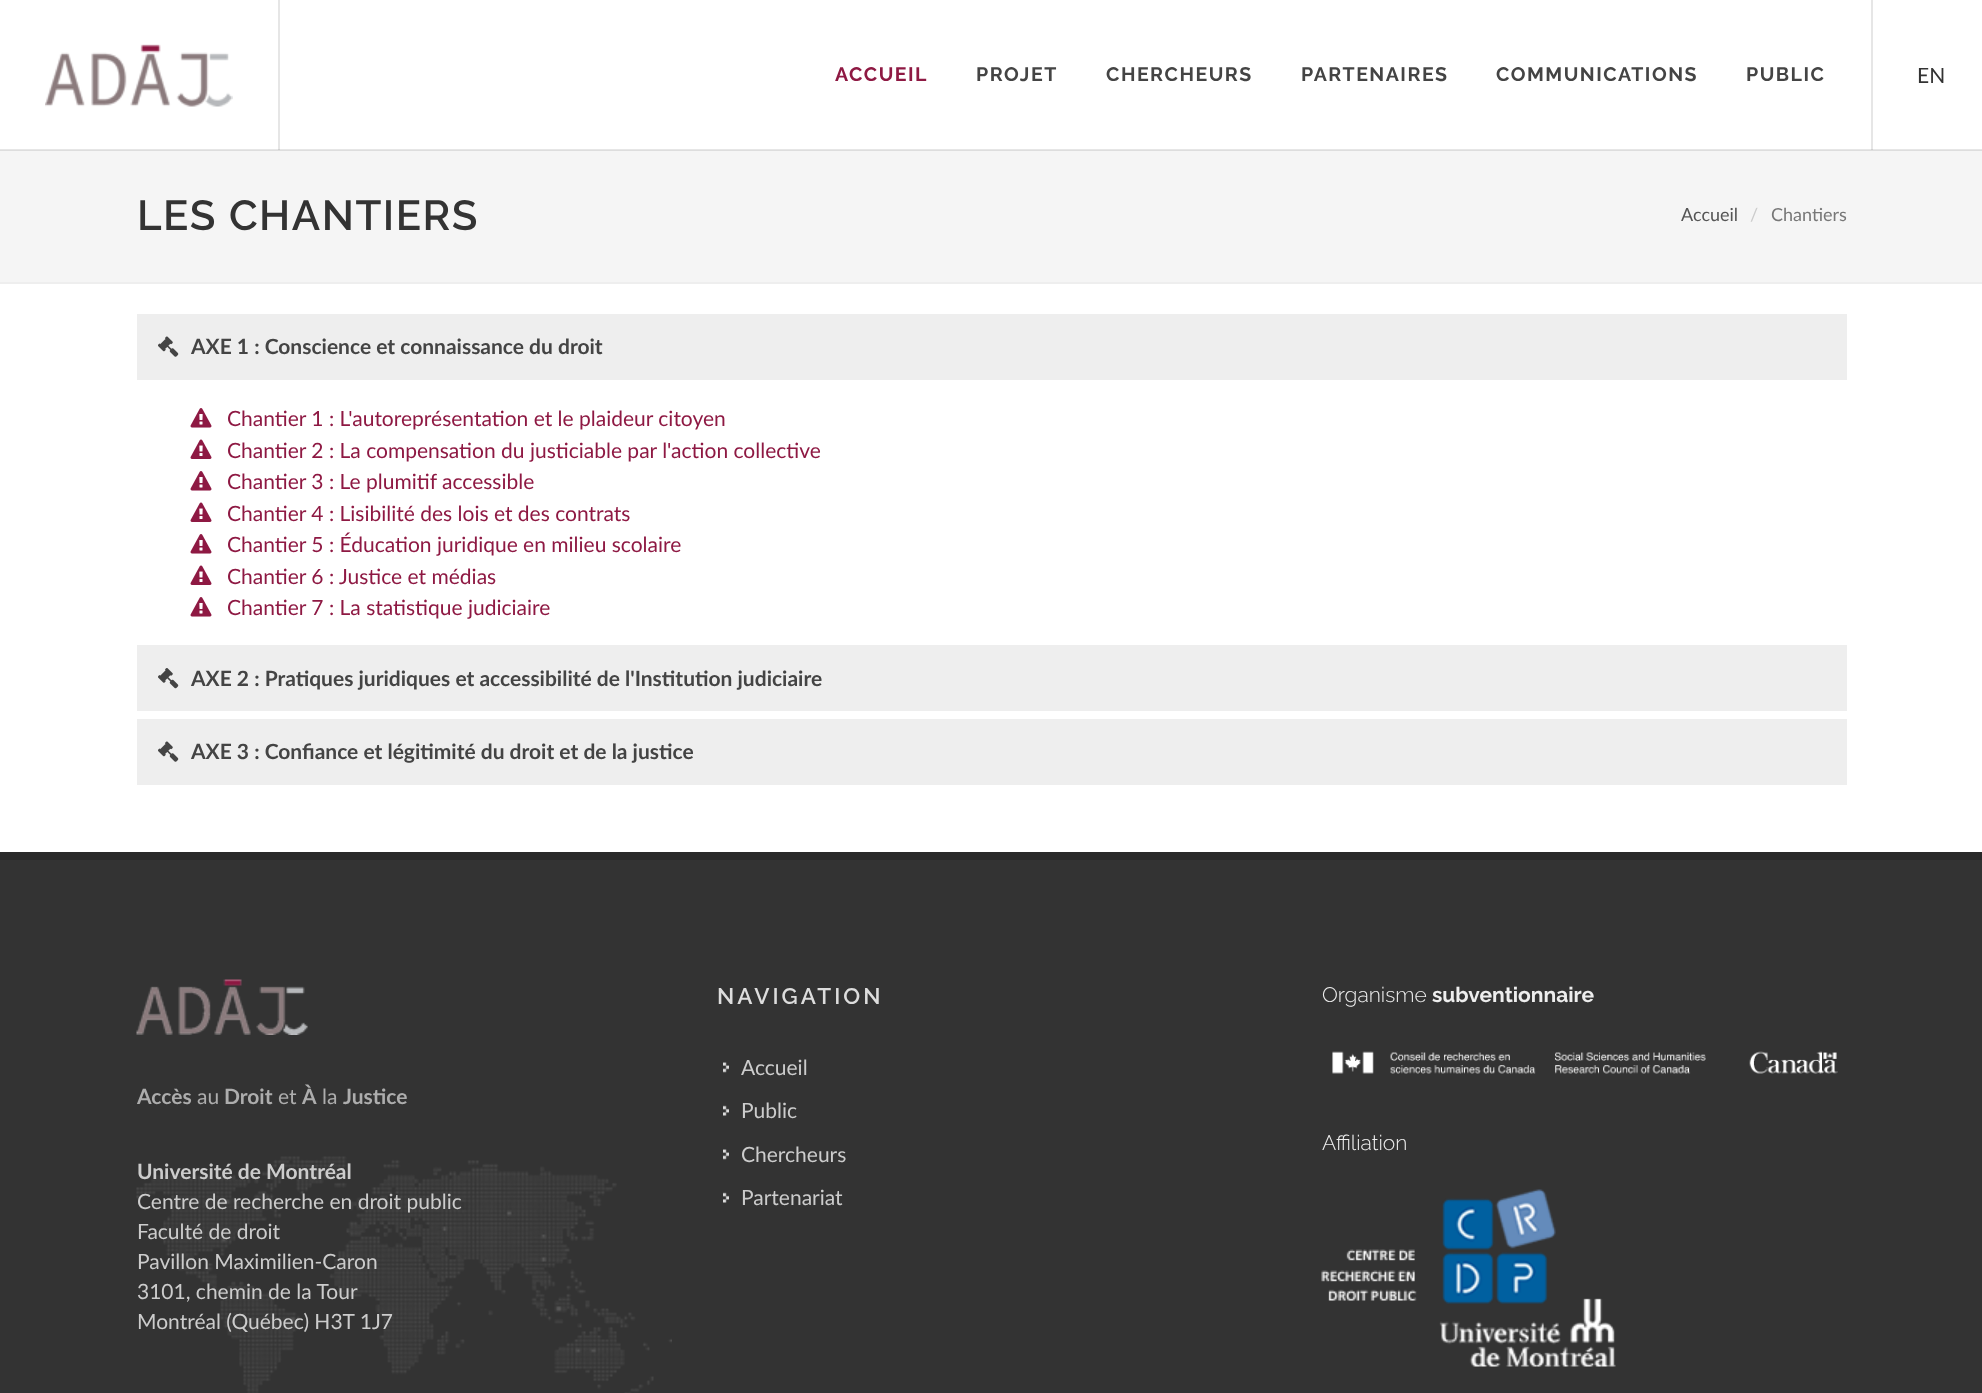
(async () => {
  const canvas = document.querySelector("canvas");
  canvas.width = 1982;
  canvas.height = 1393;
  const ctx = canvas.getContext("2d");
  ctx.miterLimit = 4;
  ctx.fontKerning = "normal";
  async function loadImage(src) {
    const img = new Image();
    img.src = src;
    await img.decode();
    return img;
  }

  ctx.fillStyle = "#ffffff";
  ctx.fillRect(0, 0, 1982, 1393);
  for (const [x, y, w, h, color] of [
    [278, 0, 2, 150, "#e6e6e6"],
    [1871, 0, 2, 150, "#e6e6e6"],
    [0, 149, 1982, 1, "#e6e6e6"],
    [278, 149, 2, 1, "#cfcfcf"],
    [1871, 149, 2, 1, "#cfcfcf"],
  ]) {
    ctx.fillStyle = color;
    ctx.fillRect(x, y, w, h);
  }
  ctx.drawImage(await loadImage("img/1.png"), 45, 44, 188, 63);
  for (const [x, y, w, h, color] of [
    [0, 151, 1982, 131, "#f5f5f5"],
    [0, 150, 1982, 1, "#dddddd"],
    [0, 282, 1982, 2, "#eeeeee"],
    [137, 314, 1710, 66, "#eeeeee"],
  ]) {
    ctx.fillStyle = color;
    ctx.fillRect(x, y, w, h);
  }
  ctx.drawImage(await loadImage("img/2.png"), 158, 336, 21, 21);
  ctx.drawImage(await loadImage("img/3.png"), 190, 408, 22, 20);
  ctx.drawImage(await loadImage("img/4.png"), 190, 439, 22, 20);
  ctx.drawImage(await loadImage("img/3.png"), 190, 471, 22, 20);
  ctx.drawImage(await loadImage("img/4.png"), 190, 502, 22, 20);
  ctx.drawImage(await loadImage("img/3.png"), 190, 534, 22, 20);
  ctx.drawImage(await loadImage("img/4.png"), 190, 565, 22, 20);
  ctx.drawImage(await loadImage("img/3.png"), 190, 597, 22, 20);
  ctx.fillRect(137, 645, 1710, 66);
  ctx.drawImage(await loadImage("img/5.png"), 158, 668, 21, 21);
  ctx.fillRect(137, 719, 1710, 66);
  ctx.drawImage(await loadImage("img/2.png"), 158, 741, 21, 21);
  ctx.fillStyle = "#333333";
  ctx.fillRect(0, 860, 1982, 533);
  ctx.fillStyle = "#292929";
  ctx.fillRect(0, 852, 1982, 8);
  ctx.drawImage(await loadImage("img/6.png"), 136, 979, 172, 56);
  ctx.drawImage(await loadImage("img/7.png"), 136, 1156, 536, 237);
  ctx.drawImage(await loadImage("img/8.png"), 723, 1062, 6, 11);
  ctx.drawImage(await loadImage("img/9.png"), 723, 1105, 6, 11);
  ctx.drawImage(await loadImage("img/8.png"), 723, 1149, 6, 11);
  ctx.drawImage(await loadImage("img/9.png"), 723, 1192, 6, 11);
  ctx.drawImage(await loadImage("img/10.png"), 1332, 1051, 506, 23);
  ctx.drawImage(await loadImage("img/11.png"), 1321, 1189, 295, 178);
  ctx.letterSpacing = "1.5px";
  ctx.font = "bold 19.5px Raleway";
  ctx.fillStyle = "#8e1943";
  ctx.fillText("ACCUEIL", 835, 81);
  ctx.fillStyle = "#444444";
  for (const [text, x, y] of [
    ["PROJET", 976, 81],
    ["CHERCHEURS", 1106, 81],
    ["PARTENAIRES", 1301, 81],
    ["COMMUNICATIONS", 1496, 81],
    ["PUBLIC", 1746, 81],
  ]) {
    ctx.fillText(text, x, y);
  }
  ctx.letterSpacing = "0px";
  ctx.font = "21px Lato";
  ctx.fillStyle = "#333333";
  ctx.fillText("EN", 1917, 83);
  ctx.letterSpacing = "1.5px";
  ctx.font = "600 42px Raleway";
  ctx.fillText("LES CHANTIERS", 137, 230);
  ctx.letterSpacing = "0px";
  ctx.font = "18px Lato";
  ctx.fillStyle = "#555555";
  ctx.fillText("Accueil", 1681, 221);
  ctx.fillStyle = "#cccccc";
  ctx.fillText("/", 1750, 221);
  ctx.fillStyle = "#777777";
  ctx.fillText("Chantiers", 1771, 221);
  ctx.font = "bold 21px Lato";
  ctx.fillStyle = "#444444";
  ctx.fillText("AXE 1 : Conscience et connaissance du droit", 191, 354);
  ctx.font = "21px Lato";
  ctx.fillStyle = "#8e1943";
  for (const [text, x, y] of [
    ["Chantier 1 : L'autoreprésentation et le plaideur citoyen", 227, 426],
    ["Chantier 2 : La compensation du justiciable par l'action collective", 227, 458],
    ["Chantier 3 : Le plumitif accessible", 227, 489],
    ["Chantier 4 : Lisibilité des lois et des contrats", 227, 521],
    ["Chantier 5 : Éducation juridique en milieu scolaire", 227, 552],
    ["Chantier 6 : Justice et médias", 227, 584],
    ["Chantier 7 : La statistique judiciaire", 227, 615],
  ]) {
    ctx.fillText(text, x, y);
  }
  ctx.font = "bold 21px Lato";
  ctx.fillStyle = "#444444";
  ctx.fillText("AXE 2 : Pratiques juridiques et accessibilité de l'Institution judiciaire", 191, 686);
  ctx.fillText("AXE 3 : Confiance et légitimité du droit et de la justice", 191, 759);
  ctx.fillStyle = "#adadad";
  ctx.fillText("Accès", 137, 1104);
  ctx.font = "21px Lato";
  ctx.fillText("au", 197, 1104);
  ctx.font = "bold 21px Lato";
  ctx.fillText("Droit", 224, 1104);
  ctx.font = "21px Lato";
  ctx.fillText("et", 278, 1104);
  ctx.font = "bold 21px Lato";
  ctx.fillText("À", 302, 1104);
  ctx.font = "21px Lato";
  ctx.fillText("la", 322, 1104);
  ctx.font = "bold 21px Lato";
  ctx.fillText("Justice", 343, 1104);
  ctx.fillStyle = "#cccccc";
  ctx.fillText("Université de Montréal", 137, 1179);
  ctx.font = "21px Lato";
  for (const [text, x, y] of [
    ["Centre de recherche en droit public", 137, 1209],
    ["Faculté de droit", 137, 1239],
    ["Pavillon Maximilien-Caron", 137, 1269],
    ["3101, chemin de la Tour", 137, 1299],
    ["Montréal (Québec) H3T 1J7", 137, 1329],
  ]) {
    ctx.fillText(text, x, y);
  }
  ctx.letterSpacing = "3px";
  ctx.font = "600 22.5px Raleway";
  ctx.fillStyle = "#dddddd";
  ctx.fillText("NAVIGATION", 717, 1004);
  ctx.letterSpacing = "0px";
  ctx.font = "21px Lato";
  ctx.fillStyle = "#cccccc";
  for (const [text, x, y] of [
    ["Accueil", 741, 1075],
    ["Public", 741, 1118],
    ["Chercheurs", 741, 1162],
    ["Partenariat", 741, 1205],
  ]) {
    ctx.fillText(text, x, y);
  }
  ctx.font = "300 21px Raleway";
  ctx.fillStyle = "#eeeeee";
  ctx.fillText("Organisme", 1322, 1002);
  ctx.font = "bold 21px Raleway";
  ctx.fillText("subventionnaire", 1432, 1002);
  ctx.font = "300 21px Raleway";
  ctx.fillText("Affiliation", 1322, 1150);
})();
